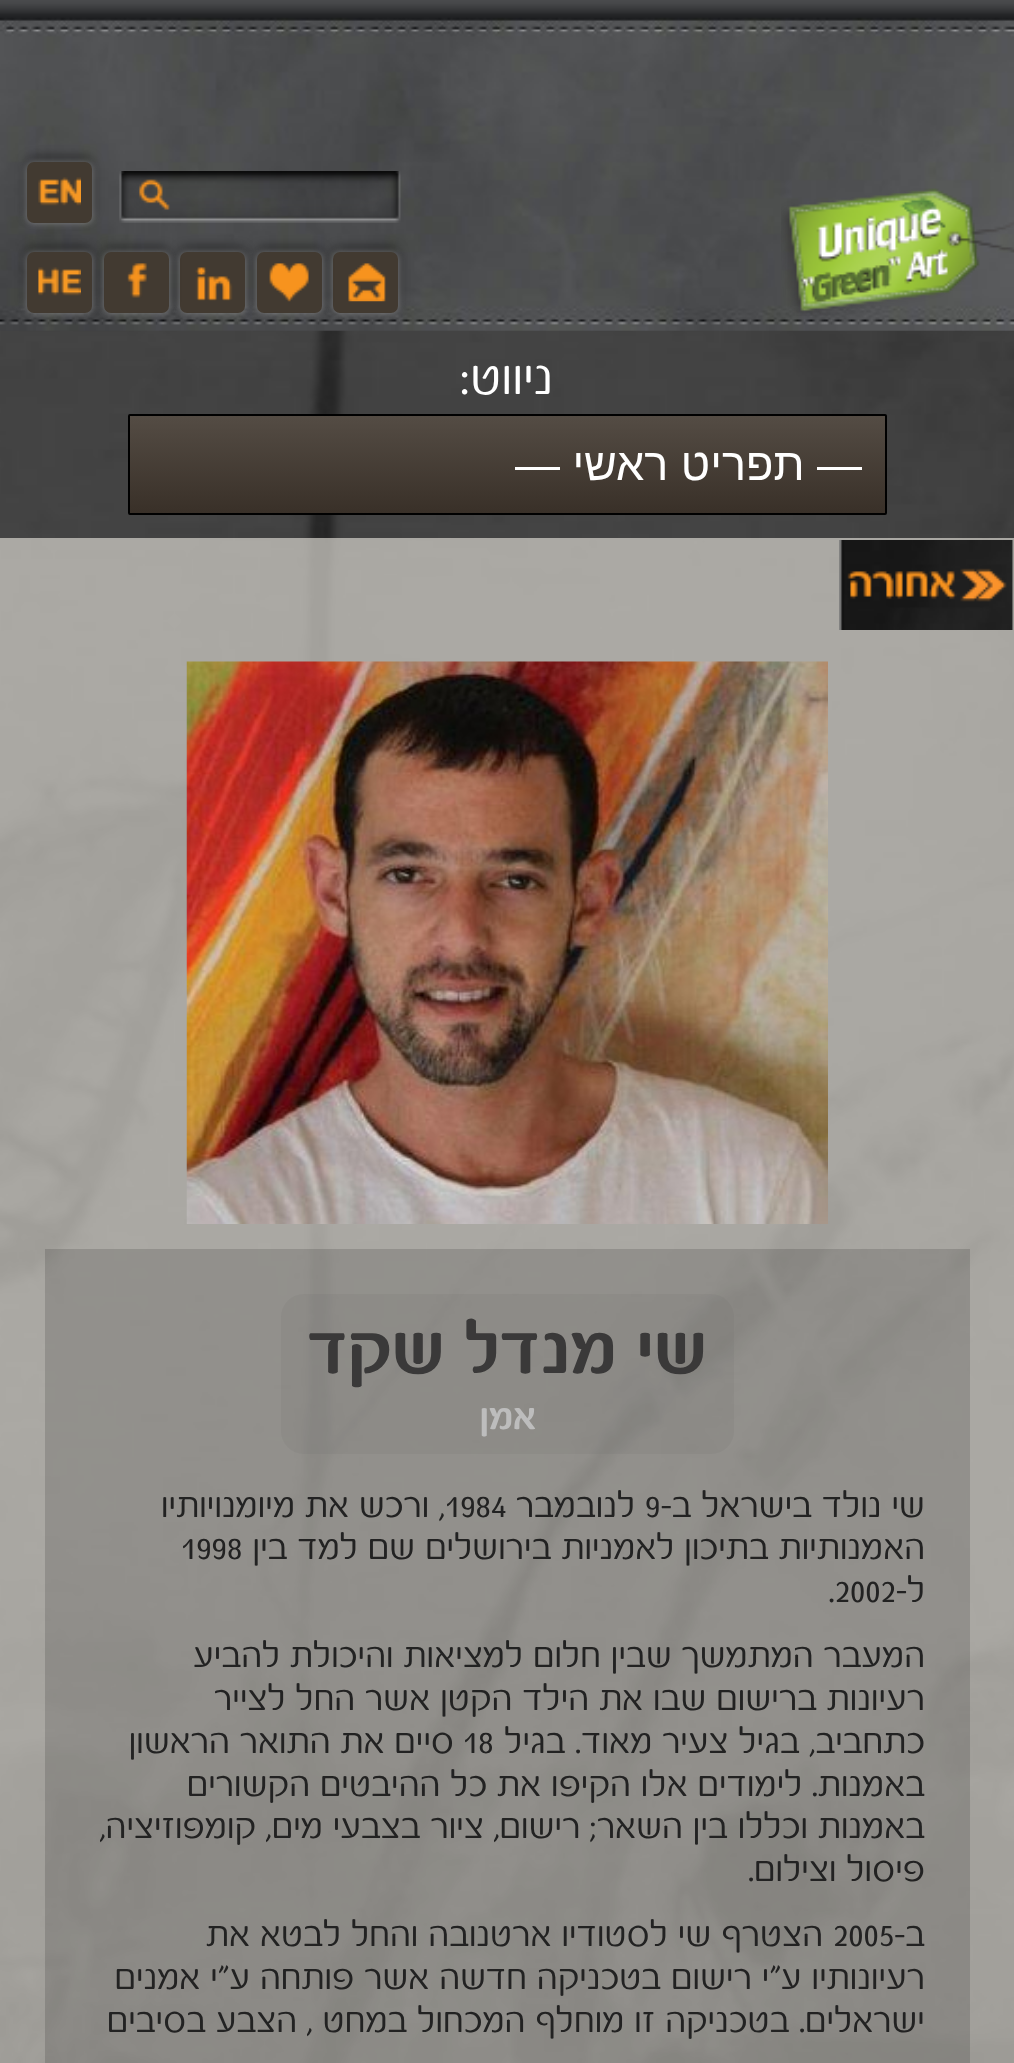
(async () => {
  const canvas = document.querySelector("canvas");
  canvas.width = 1014;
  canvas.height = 2063;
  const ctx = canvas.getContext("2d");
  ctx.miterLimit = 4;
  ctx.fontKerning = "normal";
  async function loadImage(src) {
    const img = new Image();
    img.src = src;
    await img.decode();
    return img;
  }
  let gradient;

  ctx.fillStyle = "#ffffff";
  ctx.fillRect(0, 0, 1014, 2063);
  ctx.drawImage(await loadImage("img/1.png"), 0, 330, 1014, 1733);
  ctx.drawImage(await loadImage("img/2.png"), 0, 0, 1014, 331);
  ctx.drawImage(await loadImage("img/3.png"), 781, 188, 233, 128);
  ctx.drawImage(await loadImage("img/4.png"), 119, 171, 282, 52);
  ctx.fillStyle = "rgba(0, 0, 0, 0.6)";
  ctx.filter = "blur(5.5px)";
  ctx.beginPath();
  ctx.roundRect(27, 158, 65, 60, 7);
  ctx.fill();
  ctx.filter = "none";
  ctx.fillStyle = "rgba(255, 255, 255, 0.4)";
  ctx.filter = "blur(3.5px)";
  ctx.beginPath();
  ctx.roundRect(27, 162, 65, 61, 7);
  ctx.fill();
  ctx.filter = "none";
  ctx.fillStyle = "#423a31";
  ctx.beginPath();
  ctx.roundRect(27, 162, 65, 61, 7);
  ctx.fill();
  ctx.drawImage(await loadImage("img/5.png"), 38, 177, 43, 29);
  ctx.fillStyle = "rgba(0, 0, 0, 0.6)";
  ctx.filter = "blur(5.5px)";
  ctx.beginPath();
  ctx.roundRect(333, 248, 65, 60, 7);
  ctx.fill();
  ctx.filter = "none";
  ctx.fillStyle = "rgba(255, 255, 255, 0.4)";
  ctx.filter = "blur(3.5px)";
  ctx.beginPath();
  ctx.roundRect(333, 252, 65, 61, 7);
  ctx.fill();
  ctx.filter = "none";
  ctx.fillStyle = "#423a31";
  ctx.beginPath();
  ctx.roundRect(333, 252, 65, 61, 7);
  ctx.fill();
  ctx.drawImage(await loadImage("img/6.png"), 348, 263, 38, 39);
  ctx.fillStyle = "rgba(0, 0, 0, 0.6)";
  ctx.filter = "blur(5.5px)";
  ctx.beginPath();
  ctx.roundRect(257, 248, 65, 60, 7);
  ctx.fill();
  ctx.filter = "none";
  ctx.fillStyle = "rgba(255, 255, 255, 0.4)";
  ctx.filter = "blur(3.5px)";
  ctx.beginPath();
  ctx.roundRect(257, 252, 65, 61, 7);
  ctx.fill();
  ctx.filter = "none";
  ctx.fillStyle = "#423a31";
  ctx.beginPath();
  ctx.roundRect(257, 252, 65, 61, 7);
  ctx.fill();
  ctx.drawImage(await loadImage("img/7.png"), 269, 263, 40, 39);
  ctx.fillStyle = "rgba(0, 0, 0, 0.6)";
  ctx.filter = "blur(5.5px)";
  ctx.beginPath();
  ctx.roundRect(180, 248, 65, 60, 7);
  ctx.fill();
  ctx.filter = "none";
  ctx.fillStyle = "rgba(255, 255, 255, 0.4)";
  ctx.filter = "blur(3.5px)";
  ctx.beginPath();
  ctx.roundRect(180, 252, 65, 61, 7);
  ctx.fill();
  ctx.filter = "none";
  ctx.fillStyle = "#423a31";
  ctx.beginPath();
  ctx.roundRect(180, 252, 65, 61, 7);
  ctx.fill();
  ctx.drawImage(await loadImage("img/8.png"), 195, 267, 38, 34);
  ctx.fillStyle = "rgba(0, 0, 0, 0.6)";
  ctx.filter = "blur(5.5px)";
  ctx.beginPath();
  ctx.roundRect(104, 248, 65, 60, 7);
  ctx.fill();
  ctx.filter = "none";
  ctx.fillStyle = "rgba(255, 255, 255, 0.4)";
  ctx.filter = "blur(3.5px)";
  ctx.beginPath();
  ctx.roundRect(104, 252, 65, 61, 7);
  ctx.fill();
  ctx.filter = "none";
  ctx.fillStyle = "#423a31";
  ctx.beginPath();
  ctx.roundRect(104, 252, 65, 61, 7);
  ctx.fill();
  ctx.drawImage(await loadImage("img/9.png"), 127, 263, 20, 35);
  ctx.fillStyle = "rgba(0, 0, 0, 0.6)";
  ctx.filter = "blur(5.5px)";
  ctx.beginPath();
  ctx.roundRect(27, 248, 65, 60, 7);
  ctx.fill();
  ctx.filter = "none";
  ctx.fillStyle = "rgba(255, 255, 255, 0.4)";
  ctx.filter = "blur(3.5px)";
  ctx.beginPath();
  ctx.roundRect(27, 252, 65, 61, 7);
  ctx.fill();
  ctx.filter = "none";
  ctx.fillStyle = "#423a31";
  ctx.beginPath();
  ctx.roundRect(27, 252, 65, 61, 7);
  ctx.fill();
  ctx.drawImage(await loadImage("img/10.png"), 38, 267, 43, 29);
  gradient = ctx.createLinearGradient(507, 416, 507, 513);
  gradient.addColorStop(0, "#544c44");
  gradient.addColorStop(1, "#393028");
  ctx.fillStyle = gradient;
  ctx.fillRect(130, 416, 755, 97);
  ctx.beginPath();
  ctx.roundRect(129, 415, 757, 99, 1);
  ctx.strokeStyle = "#000000";
  ctx.lineWidth = 2;
  ctx.stroke();
  ctx.fillStyle = "rgba(215, 212, 205, 0.7)";
  ctx.fillRect(0, 538, 1014, 1525);
  ctx.drawImage(await loadImage("img/11.png"), 839, 540, 175, 90);
  ctx.drawImage(await loadImage("img/12.png"), 186, 661, 642, 563);
  ctx.fillStyle = "rgba(0, 0, 0, 0.14)";
  ctx.fillRect(45, 1249, 925, 814);
  ctx.fillStyle = "rgba(100, 100, 100, 0.1)";
  ctx.beginPath();
  ctx.roundRect(281, 1294, 453, 160, 23);
  ctx.fill();
  ctx.direction = "rtl";
  ctx.font = "54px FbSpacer";
  ctx.fillStyle = "#ffffff";
  ctx.fillText("ניווט:", 553, 394);
  ctx.font = "45px Liberation Sans";
  ctx.fillText("— תפריט ראשי —", 862, 480);
  ctx.font = "bold 76.5px FbSpacer";
  ctx.fillStyle = "#3a3939";
  ctx.fillText("שי מנדל שקד", 707, 1373);
  ctx.font = "bold 40px FbSpacer";
  ctx.fillStyle = "#bdbdbd";
  ctx.fillText("אמן", 536, 1429);
  ctx.font = "38.25px FbSpacer";
  ctx.fillStyle = "#222222";
  ctx.fillText("שי נולד בישראל ב-", 925, 1517);
  ctx.direction = "ltr";
  ctx.fillText("9", 645, 1517);
  ctx.direction = "rtl";
  ctx.fillText("לנובמבר", 635, 1517);
  ctx.direction = "ltr";
  ctx.fillText("1984", 445, 1517);
  ctx.direction = "rtl";
  ctx.fillText(", ורכש את מיומנויותיו", 445, 1517);
  ctx.fillText("האמנותיות בתיכון לאמניות בירושלים שם למד בין", 925, 1559);
  ctx.direction = "ltr";
  ctx.fillText("1998", 181, 1559);
  ctx.direction = "rtl";
  ctx.fillText("ל-", 925, 1602);
  ctx.direction = "ltr";
  ctx.fillText(".2002", 829, 1602);
  ctx.direction = "rtl";
  for (const [text, x, y] of [
    ["המעבר המתמשך שבין חלום למציאות והיכולת להביע", 925, 1667],
    ["רעיונות ברישום שבו את הילד הקטן אשר החל לצייר", 925, 1710],
    ["כתחביב, בגיל צעיר מאוד. בגיל", 925, 1753],
  ]) {
    ctx.fillText(text, x, y);
  }
  ctx.direction = "ltr";
  ctx.fillText("18", 463, 1753);
  ctx.direction = "rtl";
  for (const [text, x, y] of [
    ["סיים את התואר הראשון", 454, 1753],
    ["באמנות. לימודים אלו הקיפו את כל ההיבטים הקשורים", 925, 1796],
    ["באמנות וכללו בין השאר; רישום, ציור בצבעי מים, קומפוזיציה,", 925, 1838],
    ["פיסול וצילום.", 925, 1881],
    ["ב-", 925, 1946],
  ]) {
    ctx.fillText(text, x, y);
  }
  ctx.direction = "ltr";
  ctx.fillText("2005", 833, 1946);
  ctx.direction = "rtl";
  for (const [text, x, y] of [
    ["הצטרף שי לסטודיו ארטנובה והחל לבטא את", 823, 1946],
    ["רעיונותיו ע\"י רישום בטכניקה חדשה אשר פותחה ע\"י אמנים", 925, 1989],
    ["ישראלים. בטכניקה זו מוחלף המכחול במחט , הצבע בסיבים", 925, 2032],
  ]) {
    ctx.fillText(text, x, y);
  }
})();
